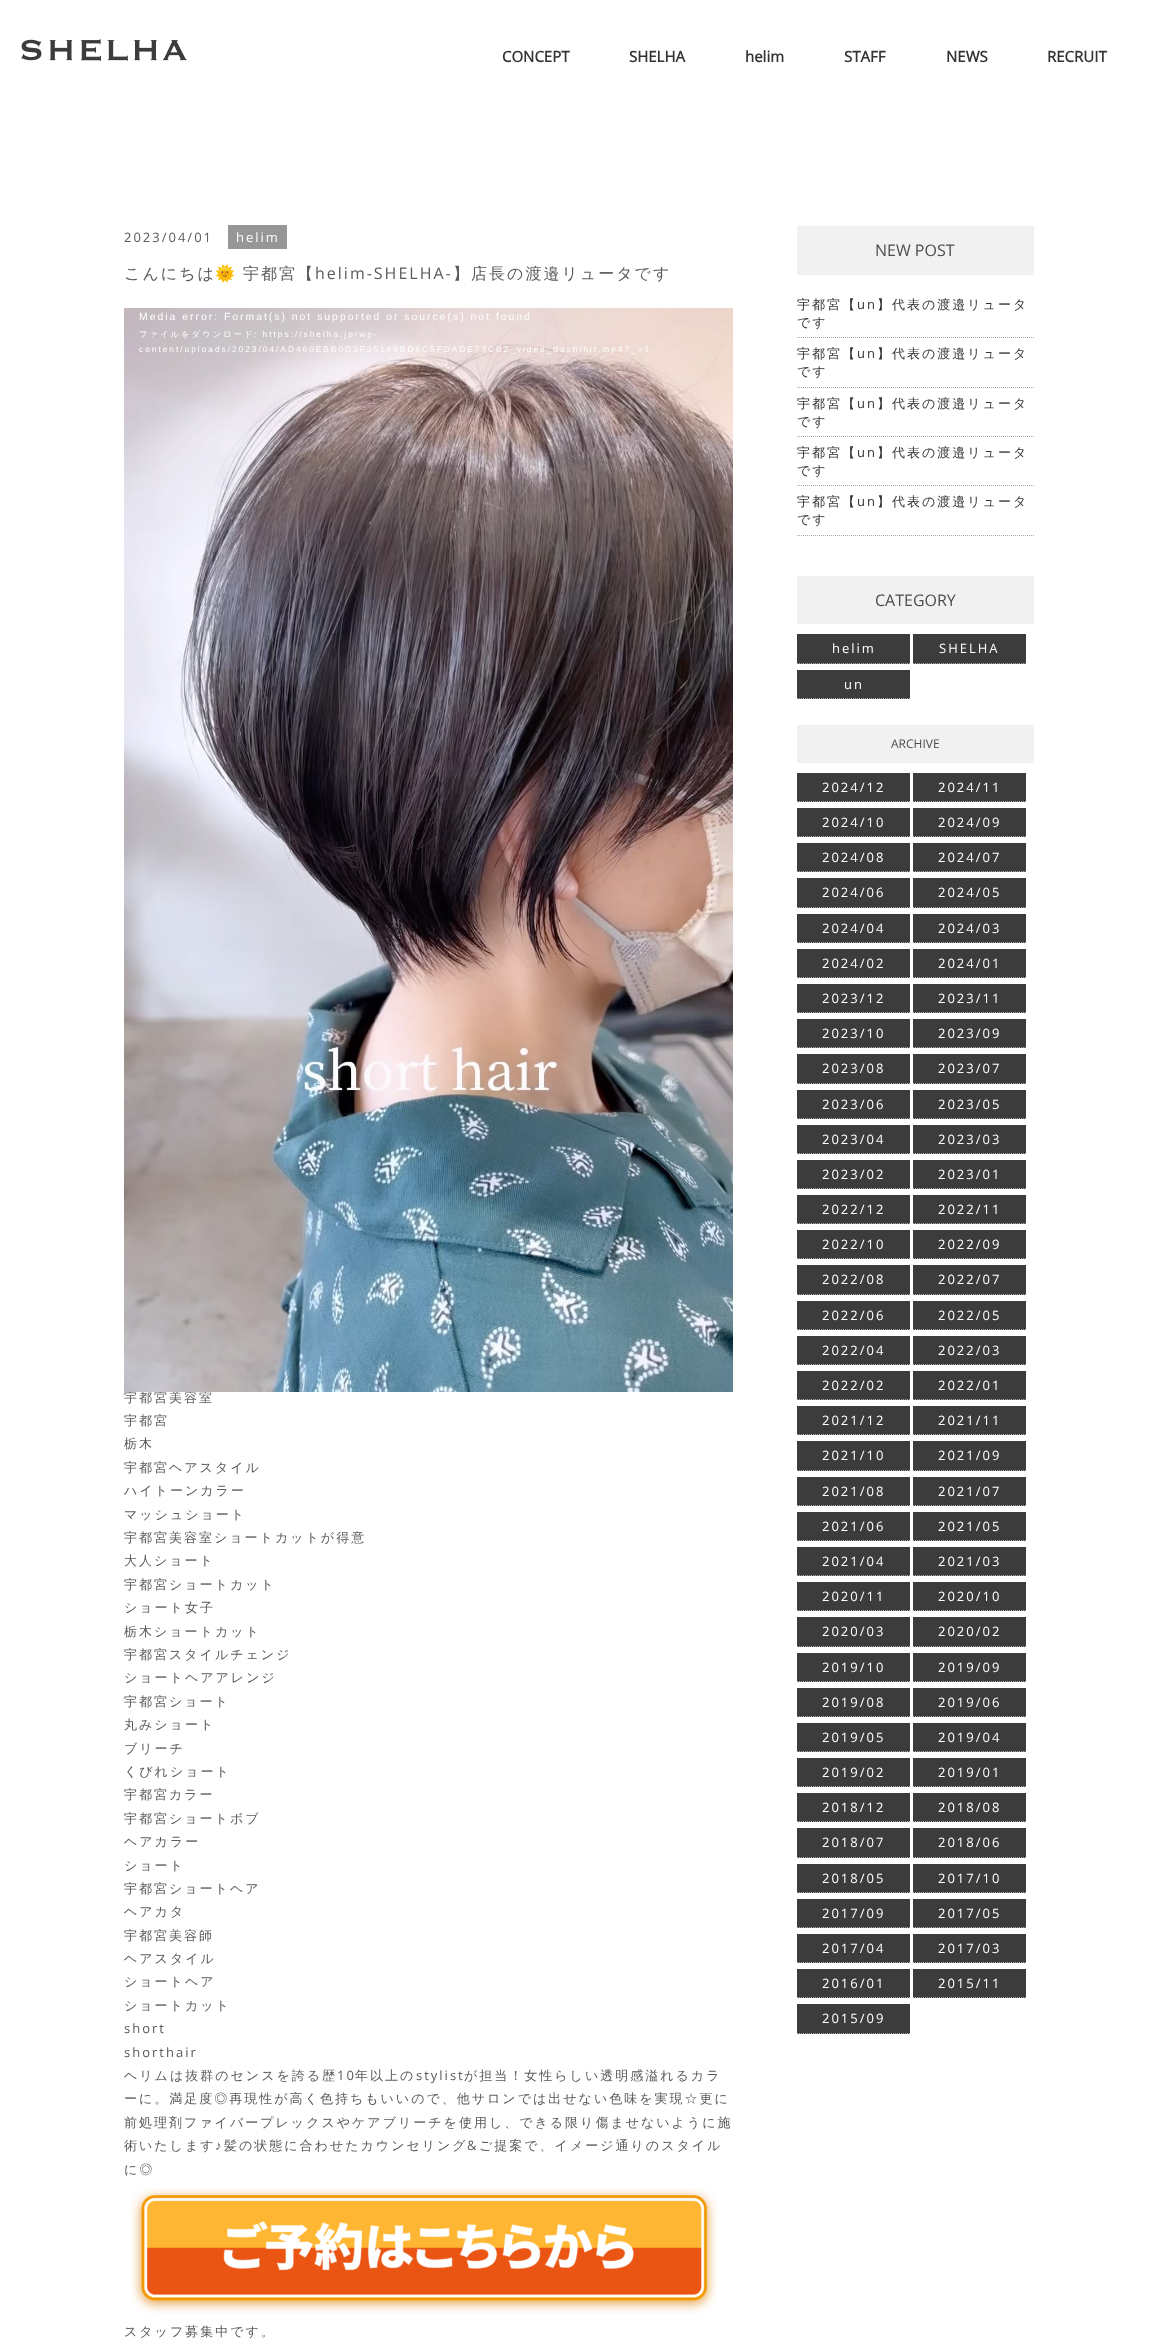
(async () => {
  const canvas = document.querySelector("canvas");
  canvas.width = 1157;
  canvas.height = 2344;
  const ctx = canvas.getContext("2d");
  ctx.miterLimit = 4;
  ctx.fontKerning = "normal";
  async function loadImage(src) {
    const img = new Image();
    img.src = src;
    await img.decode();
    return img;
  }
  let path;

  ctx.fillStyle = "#ffffff";
  ctx.fillRect(0, 0, 1157, 2344);
  ctx.drawImage(await loadImage("img/1.png"), 21, 39, 166, 22);
  ctx.fillStyle = "#969696";
  ctx.fillRect(228, 225, 59, 24);
  ctx.drawImage(await loadImage("img/3.png"), 131, 2188, 586, 126);
  ctx.fillStyle = "#f1f1f1";
  ctx.fillRect(797, 226, 237, 49);
  path = new Path2D("M797 337.5H1034");
  ctx.strokeStyle = "#aaaaaa";
  ctx.setLineDash([1, 1]);
  ctx.stroke(path);
  path = new Path2D("M797 387.5H1034");
  ctx.stroke(path);
  path = new Path2D("M797 436.5H1034");
  ctx.stroke(path);
  path = new Path2D("M797 485.5H1034");
  ctx.stroke(path);
  path = new Path2D("M797 535.5H1034");
  ctx.stroke(path);
  ctx.fillRect(797, 576, 237, 48);
  ctx.fillStyle = "#3c3c3c";
  ctx.fillRect(797, 634, 113, 30);
  path = new Path2D("M797 663.5H910");
  ctx.stroke(path);
  ctx.fillRect(913, 634, 113, 30);
  path = new Path2D("M913 663.5H1026");
  ctx.stroke(path);
  ctx.fillRect(797, 670, 113, 29);
  path = new Path2D("M797 698.5H910");
  ctx.stroke(path);
  ctx.fillStyle = "#f1f1f1";
  ctx.fillRect(797, 725, 237, 38);
  ctx.fillStyle = "#3c3c3c";
  ctx.fillRect(797, 773, 113, 29);
  path = new Path2D("M797 801.5H910");
  ctx.stroke(path);
  ctx.fillRect(913, 773, 113, 29);
  path = new Path2D("M913 801.5H1026");
  ctx.stroke(path);
  ctx.fillRect(797, 808, 113, 29);
  path = new Path2D("M797 836.5H910");
  ctx.stroke(path);
  ctx.fillRect(913, 808, 113, 29);
  path = new Path2D("M913 836.5H1026");
  ctx.stroke(path);
  ctx.fillRect(797, 843, 113, 29);
  path = new Path2D("M797 871.5H910");
  ctx.stroke(path);
  ctx.fillRect(913, 843, 113, 29);
  path = new Path2D("M913 871.5H1026");
  ctx.stroke(path);
  ctx.fillRect(797, 878, 113, 30);
  path = new Path2D("M797 907.5H910");
  ctx.stroke(path);
  ctx.fillRect(913, 878, 113, 30);
  path = new Path2D("M913 907.5H1026");
  ctx.stroke(path);
  ctx.fillRect(797, 914, 113, 29);
  path = new Path2D("M797 942.5H910");
  ctx.stroke(path);
  ctx.fillRect(913, 914, 113, 29);
  path = new Path2D("M913 942.5H1026");
  ctx.stroke(path);
  ctx.fillRect(797, 949, 113, 29);
  path = new Path2D("M797 977.5H910");
  ctx.stroke(path);
  ctx.fillRect(913, 949, 113, 29);
  path = new Path2D("M913 977.5H1026");
  ctx.stroke(path);
  ctx.fillRect(797, 984, 113, 29);
  path = new Path2D("M797 1012.5H910");
  ctx.stroke(path);
  ctx.fillRect(913, 984, 113, 29);
  path = new Path2D("M913 1012.5H1026");
  ctx.stroke(path);
  ctx.fillRect(797, 1019, 113, 29);
  path = new Path2D("M797 1047.5H910");
  ctx.stroke(path);
  ctx.fillRect(913, 1019, 113, 29);
  path = new Path2D("M913 1047.5H1026");
  ctx.stroke(path);
  ctx.fillRect(797, 1054, 113, 30);
  path = new Path2D("M797 1083.5H910");
  ctx.stroke(path);
  ctx.fillRect(913, 1054, 113, 30);
  path = new Path2D("M913 1083.5H1026");
  ctx.stroke(path);
  ctx.fillRect(797, 1090, 113, 29);
  path = new Path2D("M797 1118.5H910");
  ctx.stroke(path);
  ctx.fillRect(913, 1090, 113, 29);
  path = new Path2D("M913 1118.5H1026");
  ctx.stroke(path);
  ctx.fillRect(797, 1125, 113, 29);
  path = new Path2D("M797 1153.5H910");
  ctx.stroke(path);
  ctx.fillRect(913, 1125, 113, 29);
  path = new Path2D("M913 1153.5H1026");
  ctx.stroke(path);
  ctx.fillRect(797, 1160, 113, 29);
  path = new Path2D("M797 1188.5H910");
  ctx.stroke(path);
  ctx.fillRect(913, 1160, 113, 29);
  path = new Path2D("M913 1188.5H1026");
  ctx.stroke(path);
  ctx.fillRect(797, 1195, 113, 29);
  path = new Path2D("M797 1223.5H910");
  ctx.stroke(path);
  ctx.fillRect(913, 1195, 113, 29);
  path = new Path2D("M913 1223.5H1026");
  ctx.stroke(path);
  ctx.fillRect(797, 1230, 113, 29);
  path = new Path2D("M797 1258.5H910");
  ctx.stroke(path);
  ctx.fillRect(913, 1230, 113, 29);
  path = new Path2D("M913 1258.5H1026");
  ctx.stroke(path);
  ctx.fillRect(797, 1265, 113, 30);
  path = new Path2D("M797 1294.5H910");
  ctx.stroke(path);
  ctx.fillRect(913, 1265, 113, 30);
  path = new Path2D("M913 1294.5H1026");
  ctx.stroke(path);
  ctx.fillRect(797, 1301, 113, 29);
  path = new Path2D("M797 1329.5H910");
  ctx.stroke(path);
  ctx.fillRect(913, 1301, 113, 29);
  path = new Path2D("M913 1329.5H1026");
  ctx.stroke(path);
  ctx.fillRect(797, 1336, 113, 29);
  path = new Path2D("M797 1364.5H910");
  ctx.stroke(path);
  ctx.fillRect(913, 1336, 113, 29);
  path = new Path2D("M913 1364.5H1026");
  ctx.stroke(path);
  ctx.fillRect(797, 1371, 113, 29);
  path = new Path2D("M797 1399.5H910");
  ctx.stroke(path);
  ctx.fillRect(913, 1371, 113, 29);
  path = new Path2D("M913 1399.5H1026");
  ctx.stroke(path);
  ctx.fillRect(797, 1406, 113, 29);
  path = new Path2D("M797 1434.5H910");
  ctx.stroke(path);
  ctx.fillRect(913, 1406, 113, 29);
  path = new Path2D("M913 1434.5H1026");
  ctx.stroke(path);
  ctx.fillRect(797, 1441, 113, 30);
  path = new Path2D("M797 1470.5H910");
  ctx.stroke(path);
  ctx.fillRect(913, 1441, 113, 30);
  path = new Path2D("M913 1470.5H1026");
  ctx.stroke(path);
  ctx.fillRect(797, 1477, 113, 29);
  path = new Path2D("M797 1505.5H910");
  ctx.stroke(path);
  ctx.fillRect(913, 1477, 113, 29);
  path = new Path2D("M913 1505.5H1026");
  ctx.stroke(path);
  ctx.fillRect(797, 1512, 113, 29);
  path = new Path2D("M797 1540.5H910");
  ctx.stroke(path);
  ctx.fillRect(913, 1512, 113, 29);
  path = new Path2D("M913 1540.5H1026");
  ctx.stroke(path);
  ctx.fillRect(797, 1547, 113, 29);
  path = new Path2D("M797 1575.5H910");
  ctx.stroke(path);
  ctx.fillRect(913, 1547, 113, 29);
  path = new Path2D("M913 1575.5H1026");
  ctx.stroke(path);
  ctx.fillRect(797, 1582, 113, 29);
  path = new Path2D("M797 1610.5H910");
  ctx.stroke(path);
  ctx.fillRect(913, 1582, 113, 29);
  path = new Path2D("M913 1610.5H1026");
  ctx.stroke(path);
  ctx.fillRect(797, 1617, 113, 30);
  path = new Path2D("M797 1646.5H910");
  ctx.stroke(path);
  ctx.fillRect(913, 1617, 113, 30);
  path = new Path2D("M913 1646.5H1026");
  ctx.stroke(path);
  ctx.fillRect(797, 1653, 113, 29);
  path = new Path2D("M797 1681.5H910");
  ctx.stroke(path);
  ctx.fillRect(913, 1653, 113, 29);
  path = new Path2D("M913 1681.5H1026");
  ctx.stroke(path);
  ctx.fillRect(797, 1688, 113, 29);
  path = new Path2D("M797 1716.5H910");
  ctx.stroke(path);
  ctx.fillRect(913, 1688, 113, 29);
  path = new Path2D("M913 1716.5H1026");
  ctx.stroke(path);
  ctx.fillRect(797, 1723, 113, 29);
  path = new Path2D("M797 1751.5H910");
  ctx.stroke(path);
  ctx.fillRect(913, 1723, 113, 29);
  path = new Path2D("M913 1751.5H1026");
  ctx.stroke(path);
  ctx.fillRect(797, 1758, 113, 29);
  path = new Path2D("M797 1786.5H910");
  ctx.stroke(path);
  ctx.fillRect(913, 1758, 113, 29);
  path = new Path2D("M913 1786.5H1026");
  ctx.stroke(path);
  ctx.fillRect(797, 1793, 113, 29);
  path = new Path2D("M797 1821.5H910");
  ctx.stroke(path);
  ctx.fillRect(913, 1793, 113, 29);
  path = new Path2D("M913 1821.5H1026");
  ctx.stroke(path);
  ctx.fillRect(797, 1828, 113, 30);
  path = new Path2D("M797 1857.5H910");
  ctx.stroke(path);
  ctx.fillRect(913, 1828, 113, 30);
  path = new Path2D("M913 1857.5H1026");
  ctx.stroke(path);
  ctx.fillRect(797, 1864, 113, 29);
  path = new Path2D("M797 1892.5H910");
  ctx.stroke(path);
  ctx.fillRect(913, 1864, 113, 29);
  path = new Path2D("M913 1892.5H1026");
  ctx.stroke(path);
  ctx.fillRect(797, 1899, 113, 29);
  path = new Path2D("M797 1927.5H910");
  ctx.stroke(path);
  ctx.fillRect(913, 1899, 113, 29);
  path = new Path2D("M913 1927.5H1026");
  ctx.stroke(path);
  ctx.fillRect(797, 1934, 113, 29);
  path = new Path2D("M797 1962.5H910");
  ctx.stroke(path);
  ctx.fillRect(913, 1934, 113, 29);
  path = new Path2D("M913 1962.5H1026");
  ctx.stroke(path);
  ctx.fillRect(797, 1969, 113, 29);
  path = new Path2D("M797 1997.5H910");
  ctx.stroke(path);
  ctx.fillRect(913, 1969, 113, 29);
  path = new Path2D("M913 1997.5H1026");
  ctx.stroke(path);
  ctx.fillRect(797, 2004, 113, 30);
  path = new Path2D("M797 2033.5H910");
  ctx.stroke(path);
  ctx.font = "bold 15px Open Sans";
  ctx.fillStyle = "#333333";
  for (const [text, x, y] of [
    ["CONCEPT", 502, 62],
    ["SHELHA", 629, 62],
    ["helim", 745, 62],
    ["STAFF", 844, 62],
    ["NEWS", 946, 62],
    ["RECRUIT", 1047, 62],
  ]) {
    ctx.fillText(text, x, y);
  }
  ctx.letterSpacing = "2px";
  ctx.font = "13px Open Sans";
  ctx.fillStyle = "#595a5a";
  ctx.fillText("2023/04/01", 124, 242);
  ctx.fillStyle = "#ffffff";
  ctx.fillText("helim", 236, 242);
  ctx.font = "500 16px WenQuanYi Zen Hei";
  ctx.fillStyle = "#595a5a";
  ctx.fillText("こんにちは", 124, 279);
  ctx.font = "16px Noto Color Emoji";
  ctx.fillText("🌞", 215, 279);
  ctx.font = "500 16px WenQuanYi Zen Hei";
  ctx.fillText("宇都宮【", 243, 279);
  ctx.font = "16px Open Sans";
  ctx.fillText("helim-SHELHA-", 315, 279);
  ctx.font = "500 16px WenQuanYi Zen Hei";
  ctx.fillText("】店長の渡邉リュータです", 453, 279);
  ctx.font = "500 13px WenQuanYi Zen Hei";
  ctx.fillText("宇都宮美容室", 124, 1402);
  ctx.drawImage(await loadImage("img/2.png"), 124, 308, 609, 1084);
  ctx.font = "8.32px Liberation Sans";
  ctx.fillStyle = "#ffffff";
  ctx.fillText("content/uploads/2023/04/AD460EBB0D3F35199BD6C5FDADE73CB2_video_dashinit.mp4?_=1", 139, 352);
  ctx.fillText(": https://shelha.jp/wp-", 254, 337);
  ctx.font = "500 8.32px WenQuanYi Zen Hei";
  ctx.fillText("ファイルをダウンロード", 139, 337);
  ctx.font = "10.4px Liberation Sans";
  ctx.fillText("Media error: Format(s) not supported or source(s) not found", 139, 320);
  ctx.font = "500 13px WenQuanYi Zen Hei";
  ctx.fillStyle = "#595a5a";
  for (const [text, x, y] of [
    ["宇都宮", 124, 1425],
    ["栃木", 124, 1448],
    ["宇都宮ヘアスタイル", 124, 1472],
    ["ハイトーンカラー", 124, 1495],
    ["マッシュショート", 124, 1519],
    ["宇都宮美容室ショートカットが得意", 124, 1542],
    ["大人ショート", 124, 1565],
    ["宇都宮ショートカット", 124, 1589],
    ["ショート女子", 124, 1612],
    ["栃木ショートカット", 124, 1636],
    ["宇都宮スタイルチェンジ", 124, 1659],
    ["ショートヘアアレンジ", 124, 1682],
    ["宇都宮ショート", 124, 1706],
    ["丸みショート", 124, 1729],
    ["ブリーチ", 124, 1753],
    ["くびれショート", 124, 1776],
    ["宇都宮カラー", 124, 1799],
    ["宇都宮ショートボブ", 124, 1823],
    ["ヘアカラー", 124, 1846],
    ["ショート", 124, 1870],
    ["宇都宮ショートヘア", 124, 1893],
    ["ヘアカタ", 124, 1916],
    ["宇都宮美容師", 124, 1940],
    ["ヘアスタイル", 124, 1963],
    ["ショートヘア", 124, 1986],
    ["ショートカット", 124, 2010],
  ]) {
    ctx.fillText(text, x, y);
  }
  ctx.font = "13px Open Sans";
  ctx.fillText("short", 124, 2033);
  ctx.fillText("shorthair", 124, 2057);
  ctx.font = "500 13px WenQuanYi Zen Hei";
  ctx.fillText("ヘリムは抜群のセンスを誇る歴", 124, 2080);
  ctx.font = "13px Open Sans";
  ctx.fillText("10", 337, 2080);
  ctx.font = "500 13px WenQuanYi Zen Hei";
  ctx.fillText("年以上の", 355, 2080);
  ctx.font = "13px Open Sans";
  ctx.fillText("stylist", 416, 2080);
  ctx.font = "500 13px WenQuanYi Zen Hei";
  for (const [text, x, y] of [
    ["が担当！女性らしい透明感溢れるカラ", 464, 2080],
    ["ーに。満足度◎再現性が高く色持ちもいいので、他サロンでは出せない色味を実現☆更に", 124, 2103],
    ["前処理剤ファイバープレックスやケアブリーチを使用し、できる限り傷ませないように施", 124, 2127],
    ["術いたします", 124, 2150],
  ]) {
    ctx.fillText(text, x, y);
  }
  ctx.font = "13px Liberation Sans";
  ctx.fillText("♪", 215, 2150);
  ctx.font = "500 13px WenQuanYi Zen Hei";
  ctx.fillText("髪の状態に合わせたカウンセリング", 224, 2150);
  ctx.font = "13px Open Sans";
  ctx.fillText("&", 467, 2150);
  ctx.font = "500 13px WenQuanYi Zen Hei";
  for (const [text, x, y] of [
    ["ご提案で、イメージ通りのスタイル", 479, 2150],
    ["に◎", 124, 2174],
    ["スタッフ募集中です。", 124, 2336],
  ]) {
    ctx.fillText(text, x, y);
  }
  ctx.letterSpacing = "0px";
  ctx.font = "16px Open Sans";
  ctx.fillStyle = "#4c4c4c";
  ctx.fillText("NEW POST", 875, 256);
  ctx.letterSpacing = "2px";
  ctx.font = "500 13px WenQuanYi Zen Hei";
  ctx.fillStyle = "#333333";
  ctx.fillText("宇都宮【", 797, 309);
  ctx.font = "13px Open Sans";
  ctx.fillText("un", 857, 309);
  ctx.font = "500 13px WenQuanYi Zen Hei";
  for (const [text, x, y] of [
    ["】代表の渡邉リュータ", 877, 309],
    ["です", 797, 327],
    ["宇都宮【", 797, 358],
  ]) {
    ctx.fillText(text, x, y);
  }
  ctx.font = "13px Open Sans";
  ctx.fillText("un", 857, 358);
  ctx.font = "500 13px WenQuanYi Zen Hei";
  for (const [text, x, y] of [
    ["】代表の渡邉リュータ", 877, 358],
    ["です", 797, 376],
    ["宇都宮【", 797, 408],
  ]) {
    ctx.fillText(text, x, y);
  }
  ctx.font = "13px Open Sans";
  ctx.fillText("un", 857, 408);
  ctx.font = "500 13px WenQuanYi Zen Hei";
  for (const [text, x, y] of [
    ["】代表の渡邉リュータ", 877, 408],
    ["です", 797, 426],
    ["宇都宮【", 797, 457],
  ]) {
    ctx.fillText(text, x, y);
  }
  ctx.font = "13px Open Sans";
  ctx.fillText("un", 857, 457);
  ctx.font = "500 13px WenQuanYi Zen Hei";
  for (const [text, x, y] of [
    ["】代表の渡邉リュータ", 877, 457],
    ["です", 797, 475],
    ["宇都宮【", 797, 506],
  ]) {
    ctx.fillText(text, x, y);
  }
  ctx.font = "13px Open Sans";
  ctx.fillText("un", 857, 506);
  ctx.font = "500 13px WenQuanYi Zen Hei";
  ctx.fillText("】代表の渡邉リュータ", 877, 506);
  ctx.fillText("です", 797, 524);
  ctx.letterSpacing = "0px";
  ctx.font = "16px Open Sans";
  ctx.fillStyle = "#4c4c4c";
  ctx.fillText("CATEGORY", 875, 606);
  ctx.letterSpacing = "2px";
  ctx.font = "13px Open Sans";
  ctx.fillStyle = "#ffffff";
  for (const [text, x, y] of [
    ["helim", 832, 653],
    ["SHELHA", 939, 653],
    ["un", 844, 689],
  ]) {
    ctx.fillText(text, x, y);
  }
  ctx.letterSpacing = "0px";
  ctx.font = "12px Open Sans";
  ctx.fillStyle = "#4c4c4c";
  ctx.fillText("ARCHIVE", 891, 748);
  ctx.letterSpacing = "2px";
  ctx.font = "13px Open Sans";
  ctx.fillStyle = "#ffffff";
  for (const [text, x, y] of [
    ["2024/12", 822, 792],
    ["2024/11", 938, 792],
    ["2024/10", 822, 827],
    ["2024/09", 938, 827],
    ["2024/08", 822, 862],
    ["2024/07", 938, 862],
    ["2024/06", 822, 897],
    ["2024/05", 938, 897],
    ["2024/04", 822, 933],
    ["2024/03", 938, 933],
    ["2024/02", 822, 968],
    ["2024/01", 938, 968],
    ["2023/12", 822, 1003],
    ["2023/11", 938, 1003],
    ["2023/10", 822, 1038],
    ["2023/09", 938, 1038],
    ["2023/08", 822, 1073],
    ["2023/07", 938, 1073],
    ["2023/06", 822, 1109],
    ["2023/05", 938, 1109],
    ["2023/04", 822, 1144],
    ["2023/03", 938, 1144],
    ["2023/02", 822, 1179],
    ["2023/01", 938, 1179],
    ["2022/12", 822, 1214],
    ["2022/11", 938, 1214],
    ["2022/10", 822, 1249],
    ["2022/09", 938, 1249],
    ["2022/08", 822, 1284],
    ["2022/07", 938, 1284],
    ["2022/06", 822, 1320],
    ["2022/05", 938, 1320],
    ["2022/04", 822, 1355],
    ["2022/03", 938, 1355],
    ["2022/02", 822, 1390],
    ["2022/01", 938, 1390],
    ["2021/12", 822, 1425],
    ["2021/11", 938, 1425],
    ["2021/10", 822, 1460],
    ["2021/09", 938, 1460],
    ["2021/08", 822, 1496],
    ["2021/07", 938, 1496],
    ["2021/06", 822, 1531],
    ["2021/05", 938, 1531],
    ["2021/04", 822, 1566],
    ["2021/03", 938, 1566],
    ["2020/11", 822, 1601],
    ["2020/10", 938, 1601],
    ["2020/03", 822, 1636],
    ["2020/02", 938, 1636],
    ["2019/10", 822, 1672],
    ["2019/09", 938, 1672],
    ["2019/08", 822, 1707],
    ["2019/06", 938, 1707],
    ["2019/05", 822, 1742],
    ["2019/04", 938, 1742],
    ["2019/02", 822, 1777],
    ["2019/01", 938, 1777],
    ["2018/12", 822, 1812],
    ["2018/08", 938, 1812],
    ["2018/07", 822, 1847],
    ["2018/06", 938, 1847],
    ["2018/05", 822, 1883],
    ["2017/10", 938, 1883],
    ["2017/09", 822, 1918],
    ["2017/05", 938, 1918],
    ["2017/04", 822, 1953],
    ["2017/03", 938, 1953],
    ["2016/01", 822, 1988],
    ["2015/11", 938, 1988],
    ["2015/09", 822, 2023],
  ]) {
    ctx.fillText(text, x, y);
  }
})();
